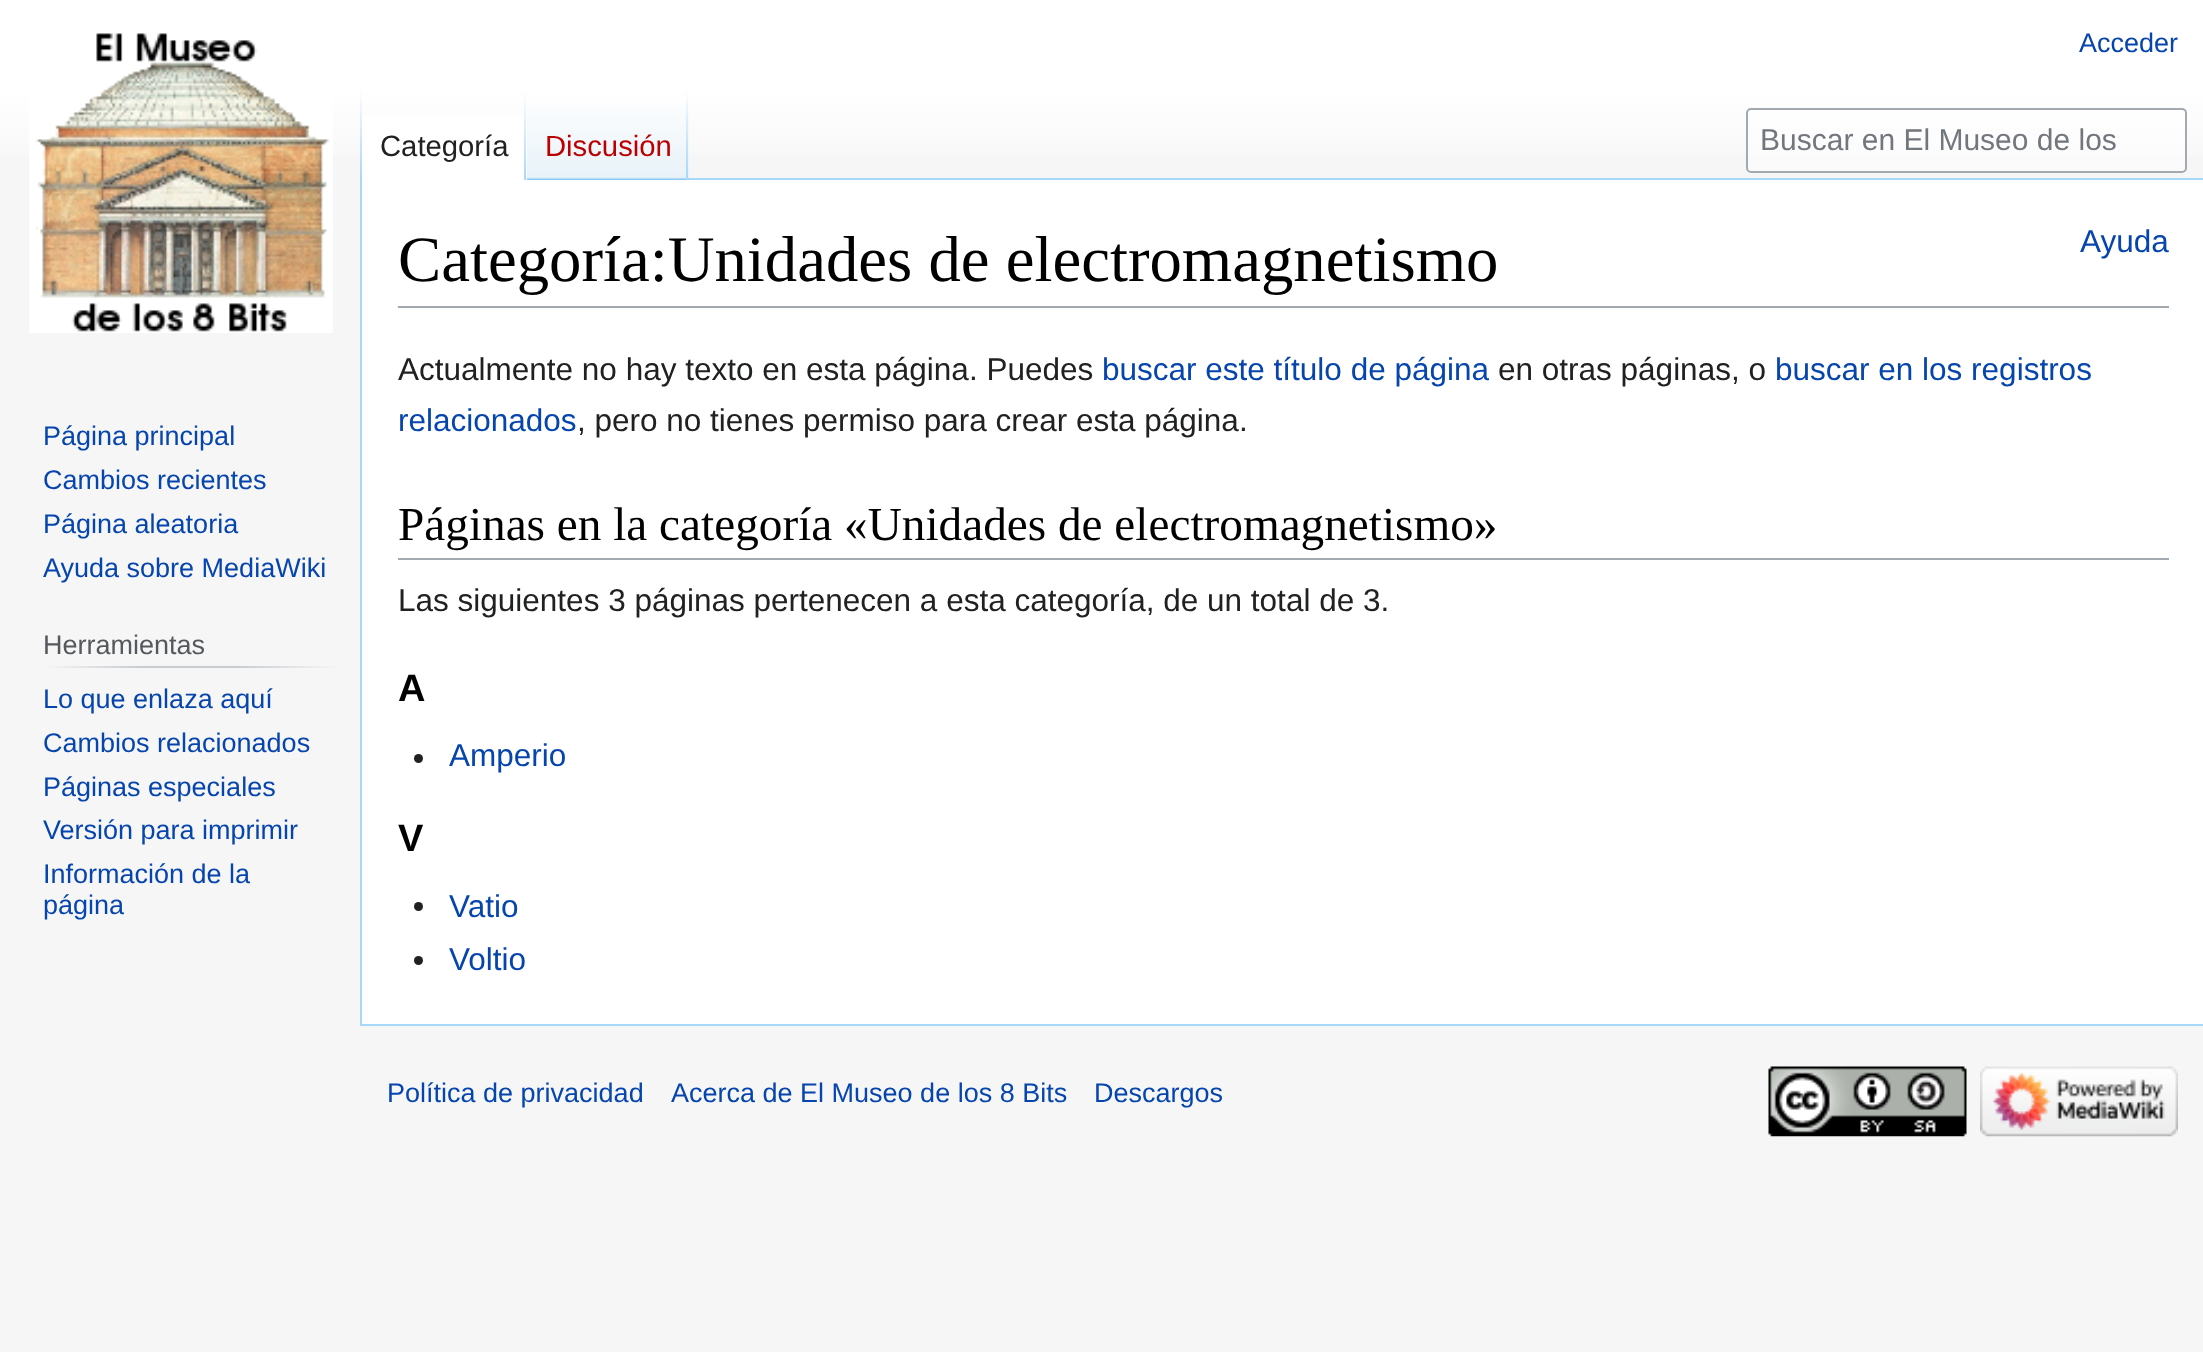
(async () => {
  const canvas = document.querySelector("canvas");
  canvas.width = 2203;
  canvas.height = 1352;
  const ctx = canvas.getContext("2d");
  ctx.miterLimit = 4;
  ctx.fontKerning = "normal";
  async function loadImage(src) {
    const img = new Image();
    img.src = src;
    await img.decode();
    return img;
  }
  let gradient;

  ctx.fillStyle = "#f6f6f6";
  ctx.fillRect(0, 0, 2203, 1352);
  gradient = ctx.createLinearGradient(1103, 0, 1103, 180);
  gradient.addColorStop(0.5, "#ffffff");
  gradient.addColorStop(1, "#f6f6f6");
  ctx.fillStyle = gradient;
  ctx.fillRect(0, 0, 2203, 155);
  ctx.fillStyle = "#a7d7f9";
  ctx.fillRect(360, 1024, 1843, 2);
  ctx.fillRect(360, 178, 2, 848);
  gradient = ctx.createLinearGradient(361, 90, 361, 180);
  gradient.addColorStop(0, "rgba(167, 215, 249, 0)");
  gradient.addColorStop(1, "#a7d7f9");
  ctx.fillStyle = gradient;
  ctx.fillRect(360, 90, 2, 90);
  ctx.fillStyle = "#ffffff";
  ctx.fillRect(362, 115, 165, 65);
  gradient = ctx.createLinearGradient(525, 90, 525, 180);
  gradient.addColorStop(0, "#ffffff");
  gradient.addColorStop(1, "#a7d7f9");
  ctx.fillStyle = gradient;
  ctx.fillRect(524, 90, 2, 90);
  gradient = ctx.createLinearGradient(608, 180, 608, 90);
  gradient.addColorStop(0, "#77c1f6");
  gradient.addColorStop(0.03, "#e8f2f8");
  gradient.addColorStop(1, "#ffffff");
  ctx.fillStyle = gradient;
  ctx.fillRect(527, 103, 162, 77);
  gradient = ctx.createLinearGradient(687, 90, 687, 180);
  gradient.addColorStop(0, "rgba(167, 215, 249, 0)");
  gradient.addColorStop(1, "#a7d7f9");
  ctx.fillStyle = gradient;
  ctx.fillRect(686, 90, 2, 90);
  ctx.fillStyle = "rgba(255, 255, 255, 0.5)";
  ctx.beginPath();
  ctx.roundRect(1747, 109, 439, 63, 4);
  ctx.fill();
  ctx.strokeStyle = "#a2a9b1";
  ctx.lineWidth = 2;
  ctx.stroke();
  ctx.drawImage(await loadImage("img/1.png"), 29, 33, 304, 300);
  gradient = ctx.createLinearGradient(43, 667, 338, 667);
  gradient.addColorStop(0, "#f6f6f6");
  gradient.addColorStop(0.33, "#c8ccd1");
  gradient.addColorStop(0.66, "#c8ccd1");
  gradient.addColorStop(1, "#f6f6f6");
  ctx.fillStyle = gradient;
  ctx.fillRect(43, 666, 295, 2);
  for (const [x, y, w, h, color] of [
    [362, 180, 1841, 844, "#ffffff"],
    [689, 178, 1514, 2, "#a7d7f9"],
    [398, 306, 1771, 2, "#a2a9b1"],
    [398, 558, 1771, 2, "#a2a9b1"],
  ]) {
    ctx.fillStyle = color;
    ctx.fillRect(x, y, w, h);
  }
  ctx.fillStyle = "#202122";
  ctx.beginPath();
  ctx.arc(418.5, 758.5, 4.5, 0, Math.PI * 2);
  ctx.fill();
  ctx.beginPath();
  ctx.arc(418.5, 906.5, 4.5, 0, Math.PI * 2);
  ctx.fill();
  ctx.beginPath();
  ctx.arc(418.5, 960.5, 4.5, 0, Math.PI * 2);
  ctx.fill();
  ctx.drawImage(await loadImage("img/2.png"), 1768, 1066, 199, 71);
  ctx.drawImage(await loadImage("img/3.png"), 1980, 1066, 198, 71);
  ctx.font = "27px Liberation Sans";
  ctx.fillStyle = "#0645ad";
  ctx.fillText("Acceder", 2079, 52);
  ctx.font = "29.25px Liberation Sans";
  ctx.fillStyle = "#202122";
  ctx.fillText("Categoría", 380, 156);
  ctx.fillStyle = "#ba0000";
  ctx.fillText("Discusión", 545, 156);
  ctx.font = "30px Liberation Sans";
  ctx.fillStyle = "#72777d";
  ctx.fillText("Buscar en El Museo de los", 1760, 150);
  ctx.font = "27px Liberation Sans";
  ctx.fillStyle = "#0645ad";
  for (const [text, x, y] of [
    ["Página principal", 43, 445],
    ["Cambios recientes", 43, 489],
    ["Página aleatoria", 43, 533],
    ["Ayuda sobre MediaWiki", 43, 577],
  ]) {
    ctx.fillText(text, x, y);
  }
  ctx.fillStyle = "#54595d";
  ctx.fillText("Herramientas", 43, 654);
  ctx.fillStyle = "#0645ad";
  for (const [text, x, y] of [
    ["Lo que enlaza aquí", 43, 708],
    ["Cambios relacionados", 43, 752],
    ["Páginas especiales", 43, 796],
    ["Versión para imprimir", 43, 839],
    ["Información de la", 43, 883],
    ["página", 43, 914],
  ]) {
    ctx.fillText(text, x, y);
  }
  ctx.font = "64.75px Liberation Serif";
  ctx.fillStyle = "#000000";
  ctx.fillText("Categoría:Unidades de electromagnetismo", 398, 281);
  ctx.font = "31.5px Liberation Sans";
  ctx.fillStyle = "#0645ad";
  ctx.fillText("Ayuda", 2080, 252);
  ctx.fillStyle = "#202122";
  ctx.fillText("Actualmente no hay texto en esta página. Puedes", 398, 380);
  ctx.fillStyle = "#0645ad";
  ctx.fillText("buscar este título de página", 1102, 380);
  ctx.fillStyle = "#202122";
  ctx.fillText("en otras páginas, o", 1498, 380);
  ctx.fillStyle = "#0645ad";
  ctx.fillText("buscar en los registros", 1775, 380);
  ctx.fillText("relacionados", 398, 431);
  ctx.fillStyle = "#202122";
  ctx.fillText(", pero no tienes permiso para crear esta página.", 577, 431);
  ctx.font = "47.25px Liberation Serif";
  ctx.fillStyle = "#000000";
  ctx.fillText("Páginas en la categoría «Unidades de electromagnetismo»", 398, 540);
  ctx.font = "31.5px Liberation Sans";
  ctx.fillStyle = "#202122";
  ctx.fillText("Las siguientes 3 páginas pertenecen a esta categoría, de un total de 3.", 398, 611);
  ctx.font = "bold 38px Liberation Sans";
  ctx.fillStyle = "#000000";
  ctx.fillText("A", 398, 701);
  ctx.font = "31.5px Liberation Sans";
  ctx.fillStyle = "#0645ad";
  ctx.fillText("Amperio", 449, 766);
  ctx.font = "bold 38px Liberation Sans";
  ctx.fillStyle = "#000000";
  ctx.fillText("V", 398, 851);
  ctx.font = "31.5px Liberation Sans";
  ctx.fillStyle = "#0645ad";
  ctx.fillText("Vatio", 449, 917);
  ctx.fillText("Voltio", 449, 970);
  ctx.font = "27px Liberation Sans";
  for (const [text, x, y] of [
    ["Política de privacidad", 387, 1102],
    ["Acerca de El Museo de los 8 Bits", 671, 1102],
    ["Descargos", 1094, 1102],
  ]) {
    ctx.fillText(text, x, y);
  }
})();
